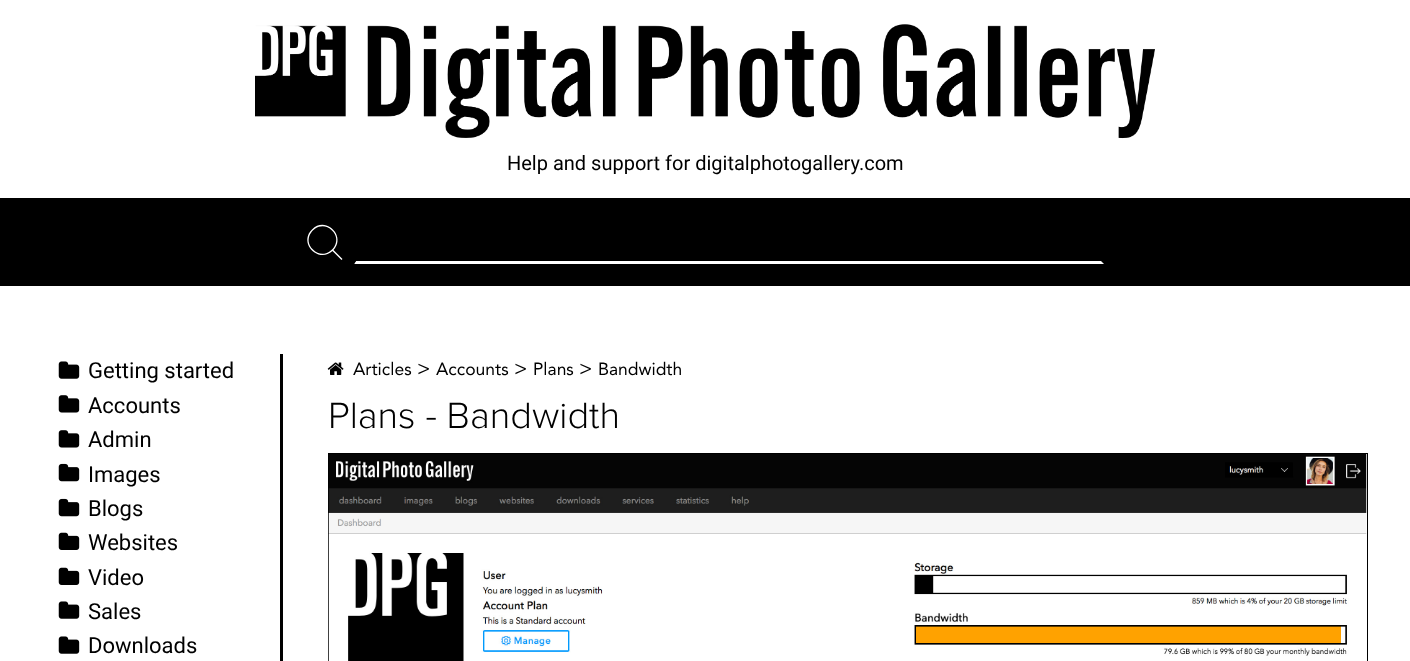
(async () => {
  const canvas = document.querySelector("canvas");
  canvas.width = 1410;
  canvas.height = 661;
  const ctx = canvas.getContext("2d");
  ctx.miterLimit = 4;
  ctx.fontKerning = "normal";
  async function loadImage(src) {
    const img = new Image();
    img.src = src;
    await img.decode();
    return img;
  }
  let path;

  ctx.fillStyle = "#ffffff";
  ctx.fillRect(0, 0, 1410, 661);
  ctx.drawImage(await loadImage("img/1.png"), 255, 24, 900, 115);
  ctx.fillStyle = "#000000";
  ctx.fillRect(0, 198, 1410, 88);
  ctx.fillStyle = "#ffffff";
  path = new Path2D("M342.5 259L341.5 260L332.5 251C318.5 264 298 243 312 229.5C325.5 215.5 346.5 236 333.5 250ZM313 249.5C325.5 262.5 345 243 332 230.5C319.5 217.5 300 237 313 249.5Z");
  ctx.fill(path);
  path = new Path2D("M1104 264H354L356 261H1101Z");
  ctx.fill(path);
  ctx.fillStyle = "#000000";
  path = new Path2D("M354 264V220L356 222V261Z");
  ctx.fill(path);
  ctx.fillRect(280, 354, 3, 307);
  ctx.drawImage(await loadImage("img/2.png"), 58, 361, 22, 18);
  ctx.drawImage(await loadImage("img/3.png"), 58, 395, 22, 18);
  ctx.drawImage(await loadImage("img/3.png"), 58, 430, 22, 18);
  ctx.drawImage(await loadImage("img/4.png"), 58, 463, 22, 19);
  ctx.drawImage(await loadImage("img/4.png"), 58, 498, 22, 19);
  ctx.drawImage(await loadImage("img/5.png"), 58, 532, 22, 18);
  ctx.drawImage(await loadImage("img/5.png"), 58, 567, 22, 18);
  ctx.drawImage(await loadImage("img/2.png"), 58, 601, 22, 18);
  ctx.drawImage(await loadImage("img/2.png"), 58, 636, 22, 18);
  ctx.drawImage(await loadImage("img/6.png"), 327, 362, 17, 13);
  ctx.strokeStyle = "#000000";
  ctx.strokeRect(328.5, 453.5, 1039, 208);
  ctx.drawImage(await loadImage("img/7.png"), 328, 454, 1039, 207);
  ctx.font = "20px Roboto";
  ctx.fillText("Help and support for digitalphotogallery.com", 507, 170);
  ctx.font = "22px Roboto";
  for (const [text, x, y] of [
    ["Getting started", 88, 378],
    ["Accounts", 88, 413],
    ["Admin", 88, 447],
    ["Images", 88, 482],
    ["Blogs", 88, 516],
    ["Websites", 88, 550],
    ["Video", 88, 585],
    ["Sales", 88, 619],
    ["Downloads", 88, 653],
  ]) {
    ctx.fillText(text, x, y);
  }
  ctx.font = "17.5px 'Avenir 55'";
  ctx.fillText("Articles", 353, 375);
  ctx.font = "20px 'Avenir 55'";
  ctx.fillText(">", 417, 375);
  ctx.font = "17.5px 'Avenir 55'";
  ctx.fillText("Accounts", 436, 375);
  ctx.font = "20px 'Avenir 55'";
  ctx.fillText(">", 514, 375);
  ctx.font = "17.5px 'Avenir 55'";
  ctx.fillText("Plans", 533, 375);
  ctx.font = "20px 'Avenir 55'";
  ctx.fillText(">", 579, 375);
  ctx.font = "17.5px 'Avenir 55'";
  ctx.fillText("Bandwidth", 598, 375);
  ctx.font = "300 38px Proxima Nova";
  ctx.fillText("Plans - Bandwidth", 328, 428);
})();
